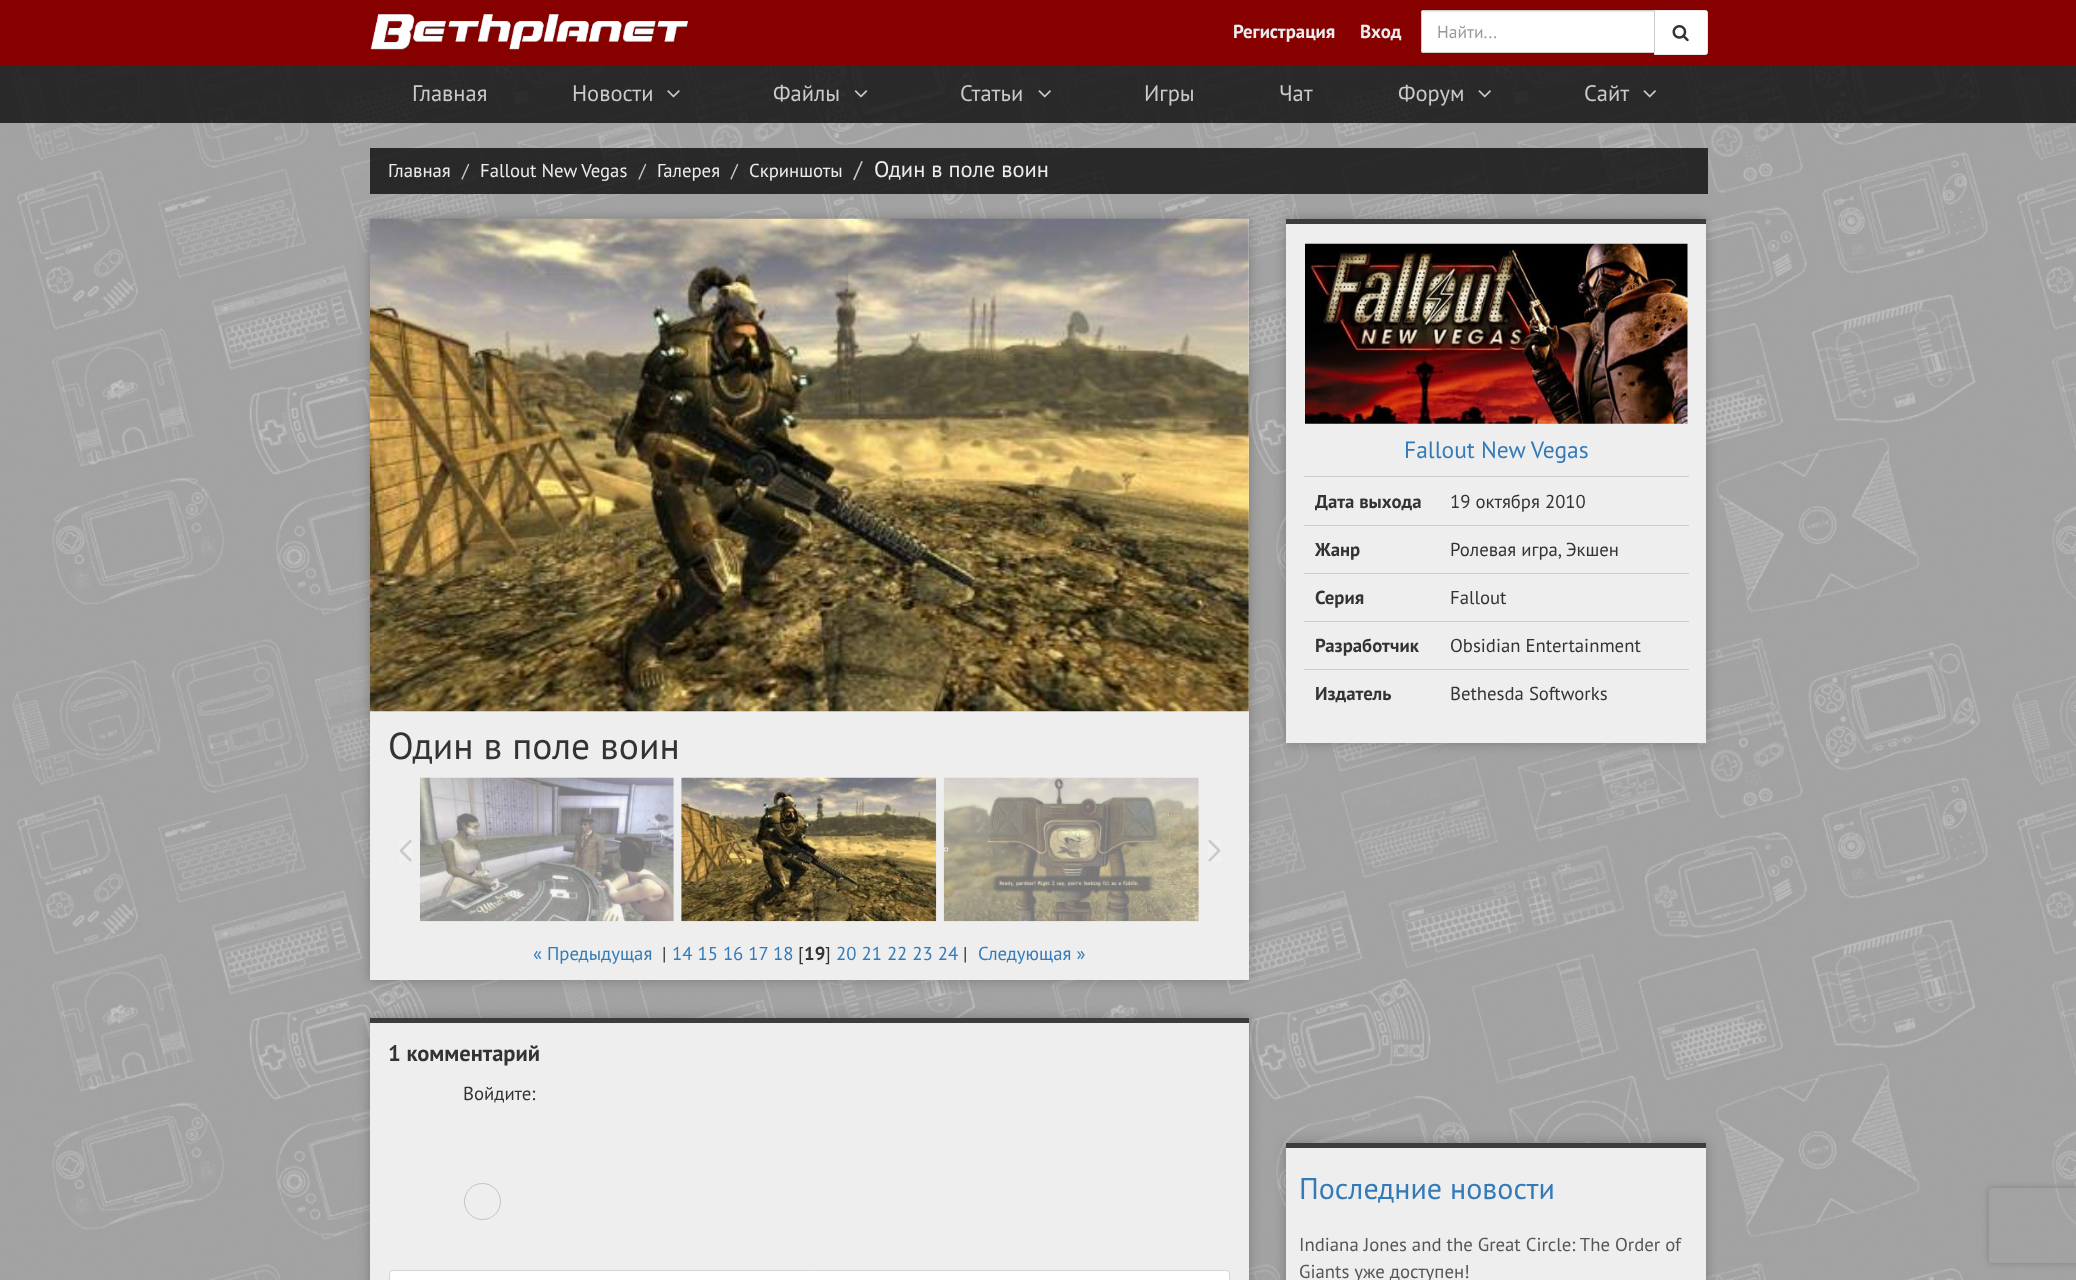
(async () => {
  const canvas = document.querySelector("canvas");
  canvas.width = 2076;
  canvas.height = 1280;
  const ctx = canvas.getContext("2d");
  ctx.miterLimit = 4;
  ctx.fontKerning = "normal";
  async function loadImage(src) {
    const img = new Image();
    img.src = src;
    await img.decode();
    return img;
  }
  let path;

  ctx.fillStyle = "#ffffff";
  ctx.fillRect(0, 0, 2076, 1280);
  ctx.drawImage(await loadImage("img/1.png"), 0, 65, 2076, 1215);
  ctx.fillStyle = "#860000";
  ctx.fillRect(0, 0, 2076, 65);
  ctx.drawImage(await loadImage("img/2.png"), 370, 14, 318, 36);
  ctx.fillStyle = "#ffffff";
  ctx.beginPath();
  ctx.roundRect(1654.5, 10.5, 53, 44, [0, 2, 2, 0]);
  ctx.fill();
  ctx.strokeStyle = "#e5e7eb";
  ctx.stroke();
  ctx.beginPath();
  ctx.roundRect(1421, 10, 234, 43, [2.5, 0, 0, 2.5]);
  ctx.fill();
  ctx.fillStyle = "#ececec";
  path = new Path2D("M1424 12H1654V11H1424C1423 11 1423 12 1423 13Z");
  ctx.fill(path);
  ctx.beginPath();
  ctx.roundRect(1421.5, 10.5, 233, 42, [2, 0, 0, 2]);
  ctx.strokeStyle = "#cccccc";
  ctx.stroke();
  ctx.drawImage(await loadImage("img/3.png"), 1672, 25, 17, 17);
  ctx.fillStyle = "rgba(0, 0, 0, 0.75)";
  ctx.fillRect(0, 65, 2076, 58);
  ctx.drawImage(await loadImage("img/4.png"), 667, 90, 13, 8);
  ctx.drawImage(await loadImage("img/5.png"), 854, 90, 14, 8);
  ctx.drawImage(await loadImage("img/6.png"), 1038, 90, 13, 8);
  ctx.drawImage(await loadImage("img/7.png"), 1478, 90, 13, 8);
  ctx.drawImage(await loadImage("img/8.png"), 1643, 90, 13, 8);
  ctx.fillRect(370, 148, 1338, 46);
  ctx.fillStyle = "rgba(0, 0, 0, 0.25)";
  ctx.filter = "blur(6px)";
  ctx.beginPath();
  ctx.rect(370, 219, 879, 761);
  ctx.fill();
  ctx.filter = "none";
  ctx.fillStyle = "#eeeeee";
  ctx.fillRect(370, 219, 879, 761);
  ctx.drawImage(await loadImage("img/9.png"), 370, 218, 879, 494);
  ctx.drawImage(await loadImage("img/10.png"), 399, 840, 13, 22);
  ctx.drawImage(await loadImage("img/11.png"), 420, 777, 254, 145);
  ctx.drawImage(await loadImage("img/12.png"), 681, 777, 256, 145);
  ctx.drawImage(await loadImage("img/13.png"), 943, 777, 256, 145);
  ctx.drawImage(await loadImage("img/14.png"), 1208, 840, 13, 22);
  ctx.fillStyle = "rgba(0, 0, 0, 0.25)";
  ctx.filter = "blur(6px)";
  ctx.beginPath();
  ctx.rect(370, 1018, 879, 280);
  ctx.fill();
  ctx.filter = "none";
  ctx.fillStyle = "#eeeeee";
  ctx.fillRect(370, 1023, 879, 257);
  ctx.fillStyle = "#3c3c3c";
  ctx.fillRect(370, 1018, 879, 5);
  ctx.beginPath();
  ctx.arc(482.5, 1201.5, 18, 0, Math.PI * 2);
  ctx.strokeStyle = "#c4c4c4";
  ctx.stroke();
  ctx.fillStyle = "#ffffff";
  ctx.beginPath();
  ctx.roundRect(389.5, 1270.5, 840, 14, 3.5);
  ctx.fill();
  ctx.strokeStyle = "#d6d6d6";
  ctx.stroke();
  ctx.fillStyle = "rgba(0, 0, 0, 0.25)";
  ctx.filter = "blur(6px)";
  ctx.beginPath();
  ctx.rect(1286, 219, 420, 524);
  ctx.fill();
  ctx.filter = "none";
  ctx.fillStyle = "#eeeeee";
  ctx.fillRect(1286, 224, 420, 519);
  ctx.fillStyle = "#3c3c3c";
  ctx.fillRect(1286, 219, 420, 5);
  ctx.drawImage(await loadImage("img/15.png"), 1305, 243, 383, 181);
  for (const [x, y, w, h, color] of [
    [1304, 476, 385, 1, "#cccccc"],
    [1304, 525, 385, 1, "#cccccc"],
    [1304, 573, 385, 1, "#cccccc"],
    [1304, 621, 385, 1, "#cccccc"],
    [1304, 669, 385, 1, "#cccccc"],
  ]) {
    ctx.fillStyle = color;
    ctx.fillRect(x, y, w, h);
  }
  ctx.fillStyle = "rgba(0, 0, 0, 0.25)";
  ctx.filter = "blur(6px)";
  ctx.beginPath();
  ctx.rect(1286, 1143, 420, 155);
  ctx.fill();
  ctx.filter = "none";
  ctx.fillStyle = "#eeeeee";
  ctx.fillRect(1286, 1148, 420, 132);
  ctx.fillStyle = "#3c3c3c";
  ctx.fillRect(1286, 1143, 420, 5);
  ctx.save();
  path = new Path2D("M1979 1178H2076V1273H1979ZM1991.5 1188H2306.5C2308 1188 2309 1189 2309 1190.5V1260.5C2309 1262 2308 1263 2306.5 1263H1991.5C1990 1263 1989 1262 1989 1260.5V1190.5C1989 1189 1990 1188 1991.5 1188Z");
  ctx.clip(path, "evenodd");
  ctx.fillStyle = "#808080";
  ctx.filter = "blur(3px)";
  ctx.beginPath();
  ctx.roundRect(1989, 1188, 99, 75, 2.5);
  ctx.fill();
  ctx.filter = "none";
  ctx.restore();
  ctx.font = "bold 18.75px PT Sans";
  ctx.fillStyle = "#ededed";
  ctx.fillText("Регистрация", 1233, 38);
  ctx.fillText("Вход", 1360, 38);
  ctx.font = "17.5px PT Sans";
  ctx.fillStyle = "#999999";
  ctx.fillText("Найти...", 1437, 38);
  ctx.font = "22.5px PT Sans";
  ctx.fillStyle = "#cacaca";
  for (const [text, x, y] of [
    ["Главная", 412, 101],
    ["Новости", 572, 101],
    ["Файлы", 773, 101],
    ["Статьи", 960, 101],
    ["Игры", 1144, 101],
    ["Чат", 1279, 101],
    ["Форум", 1398, 101],
    ["Сайт", 1584, 101],
  ]) {
    ctx.fillText(text, x, y);
  }
  ctx.font = "18.75px PT Sans";
  ctx.fillStyle = "#ededed";
  ctx.fillText("Главная", 388, 177);
  ctx.fillStyle = "#cacaca";
  ctx.fillText("/", 462, 177);
  ctx.fillStyle = "#ededed";
  ctx.fillText("Fallout New Vegas", 480, 177);
  ctx.fillStyle = "#cacaca";
  ctx.fillText("/", 639, 177);
  ctx.fillStyle = "#ededed";
  ctx.fillText("Галерея", 657, 177);
  ctx.fillStyle = "#cacaca";
  ctx.fillText("/", 731, 177);
  ctx.fillStyle = "#ededed";
  ctx.fillText("Скриншоты", 749, 177);
  ctx.font = "22.5px PT Sans";
  ctx.fillStyle = "#cacaca";
  ctx.fillText("/", 854, 177);
  ctx.fillStyle = "#ededed";
  ctx.fillText("Один в поле воин", 874, 177);
  ctx.font = "37.5px PT Sans";
  ctx.fillStyle = "#333333";
  ctx.fillText("Один в поле воин", 388, 759);
  ctx.font = "18.75px PT Sans";
  ctx.fillStyle = "#337ab7";
  ctx.fillText("« Предыдущая", 533, 960);
  ctx.fillStyle = "#333333";
  ctx.fillText("|", 662, 960);
  ctx.fillStyle = "#337ab7";
  ctx.fillText("14 15 16 17", 672, 960);
  ctx.fillText("18", 773, 960);
  ctx.fillStyle = "#333333";
  ctx.fillText("[", 798, 960);
  ctx.font = "bold 18.75px PT Sans";
  ctx.fillText("19", 804, 960);
  ctx.font = "18.75px PT Sans";
  ctx.fillText("]", 825, 960);
  ctx.fillStyle = "#337ab7";
  ctx.fillText("20 21 22 23 24", 836, 960);
  ctx.fillStyle = "#333333";
  ctx.fillText("|", 963, 960);
  ctx.fillStyle = "#337ab7";
  ctx.fillText("Следующая »", 978, 960);
  ctx.font = "bold 22.5px PT Sans";
  ctx.fillStyle = "#333333";
  ctx.fillText("1 комментарий", 388, 1061);
  ctx.font = "18.75px PT Sans";
  ctx.fillText("Войдите:", 463, 1100);
  ctx.font = "23.5px PT Sans";
  ctx.fillStyle = "#337ab7";
  ctx.fillText("Fallout New Vegas", 1404, 458);
  ctx.font = "bold 18.75px PT Sans";
  ctx.fillStyle = "#333333";
  ctx.fillText("Дата выхода", 1315, 508);
  ctx.font = "18.75px PT Sans";
  ctx.fillText("19 октября 2010", 1450, 508);
  ctx.font = "bold 18.75px PT Sans";
  ctx.fillText("Жанр", 1315, 556);
  ctx.font = "18.75px PT Sans";
  ctx.fillText("Ролевая игра, Экшен", 1450, 556);
  ctx.font = "bold 18.75px PT Sans";
  ctx.fillText("Серия", 1315, 604);
  ctx.font = "18.75px PT Sans";
  ctx.fillText("Fallout", 1450, 604);
  ctx.font = "bold 18.75px PT Sans";
  ctx.fillText("Разработчик", 1315, 652);
  ctx.font = "18.75px PT Sans";
  ctx.fillText("Obsidian Entertainment", 1450, 652);
  ctx.font = "bold 18.75px PT Sans";
  ctx.fillText("Издатель", 1315, 700);
  ctx.font = "18.75px PT Sans";
  ctx.fillText("Bethesda Softworks", 1450, 700);
  ctx.font = "30px PT Sans";
  ctx.fillStyle = "#337ab7";
  ctx.fillText("Последние новости", 1299, 1199);
  ctx.font = "18.75px PT Sans";
  ctx.fillStyle = "#555555";
  ctx.fillText("Indiana Jones and the Great Circle: The Order of", 1299, 1251);
  ctx.fillText("Giants уже доступен!", 1299, 1278);
})();
